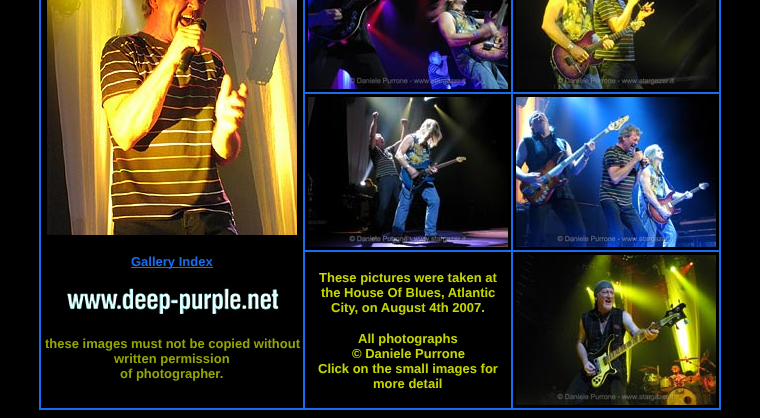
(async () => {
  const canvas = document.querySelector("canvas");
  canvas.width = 760;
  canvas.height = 418;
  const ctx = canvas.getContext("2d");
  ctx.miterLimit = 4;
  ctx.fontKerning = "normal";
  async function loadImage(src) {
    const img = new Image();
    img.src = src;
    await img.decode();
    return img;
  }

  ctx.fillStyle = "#000000";
  ctx.fillRect(0, 0, 760, 418);
  ctx.strokeStyle = "#186def";
  ctx.strokeRect(39.5, -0.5, 681, 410);
  ctx.strokeRect(304.5, 93.5, 207, 157);
  ctx.drawImage(await loadImage("img/1.png"), 308, 97, 200, 150);
  ctx.strokeRect(512.5, 93.5, 207, 157);
  ctx.drawImage(await loadImage("img/2.png"), 516, 97, 200, 150);
  ctx.strokeRect(304.5, -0.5, 207, 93);
  ctx.drawImage(await loadImage("img/3.png"), 308, 0, 200, 89);
  ctx.strokeRect(512.5, -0.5, 207, 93);
  ctx.drawImage(await loadImage("img/4.png"), 516, 0, 200, 89);
  ctx.strokeRect(40.5, -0.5, 263, 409);
  ctx.drawImage(await loadImage("img/5.png"), 47, 0, 250, 235);
  ctx.fillStyle = "#186def";
  ctx.fillRect(131, 267, 82, 1);
  ctx.drawImage(await loadImage("img/6.png"), 64, 285, 216, 32);
  ctx.strokeRect(304.5, 251.5, 207, 157);
  ctx.strokeRect(512.5, 251.5, 207, 157);
  ctx.drawImage(await loadImage("img/7.png"), 516, 255, 200, 150);
  ctx.font = "bold 13px Liberation Sans";
  ctx.fillText("Gallery Index", 131, 266);
  ctx.fillStyle = "#94a600";
  for (const [text, x, y] of [
    ["these images must not be copied without", 45, 348],
    ["written permission", 114, 363],
    ["of photographer.", 120, 378],
  ]) {
    ctx.fillText(text, x, y);
  }
  ctx.fillStyle = "#c6d700";
  for (const [text, x, y] of [
    ["These pictures were taken at", 319, 282],
    ["the House Of Blues, Atlantic", 321, 297],
    ["City, on August 4th 2007.", 331, 312],
    ["All photographs", 358, 343],
    ["© Daniele Purrone", 352, 358],
    ["Click on the small images for", 318, 373],
    ["more detail", 373, 388],
  ]) {
    ctx.fillText(text, x, y);
  }
})();
